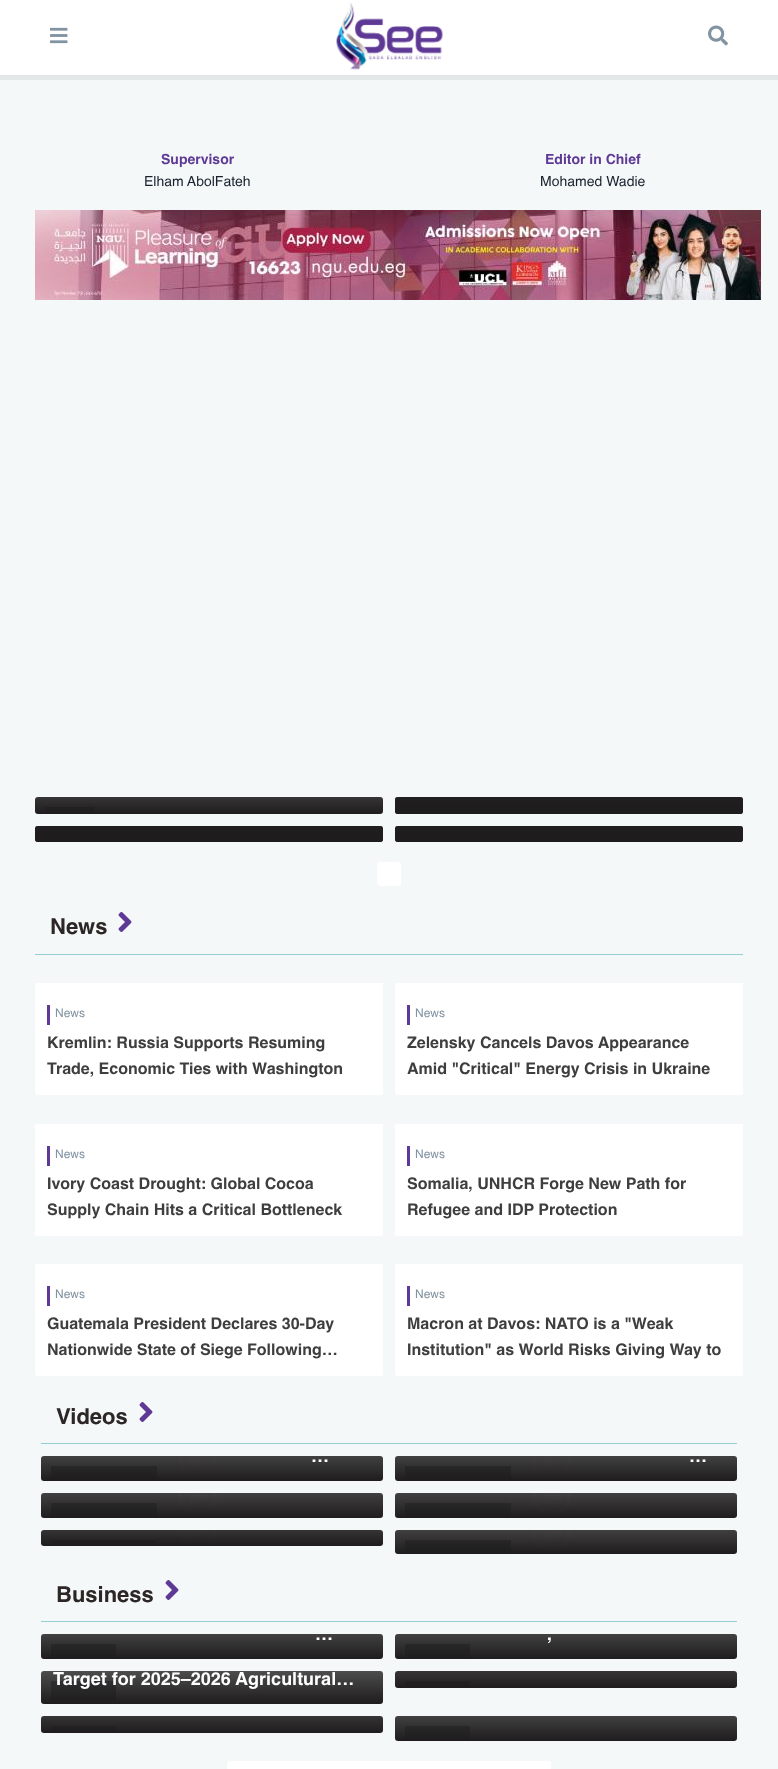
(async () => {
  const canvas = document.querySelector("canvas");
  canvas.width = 778;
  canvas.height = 1769;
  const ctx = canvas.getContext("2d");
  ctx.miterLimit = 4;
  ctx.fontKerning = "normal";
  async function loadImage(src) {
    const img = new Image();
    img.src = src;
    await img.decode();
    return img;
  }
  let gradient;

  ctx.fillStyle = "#f5f8f8";
  ctx.fillRect(0, 0, 778, 1769);
  ctx.strokeStyle = "#e4e7e7";
  ctx.lineWidth = 5;
  ctx.strokeRect(-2.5, -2.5, 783, 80);
  ctx.fillStyle = "#ffffff";
  ctx.fillRect(0, 0, 778, 75);
  ctx.drawImage(await loadImage("img/1.png"), 50, 27, 18, 17);
  ctx.drawImage(await loadImage("img/2.png"), 336, 3, 108, 67);
  ctx.drawImage(await loadImage("img/3.png"), 708, 25, 20, 21);
  ctx.drawImage(await loadImage("img/4.png"), 35, 210, 726, 90);
  ctx.fillStyle = "#8293a2";
  ctx.fillRect(45, 807, 49, 6);
  gradient = ctx.createLinearGradient(209, 664, 209, 814);
  gradient.addColorStop(0, "rgba(30, 28, 28, 0)");
  gradient.addColorStop(1, "#1e1c1c");
  ctx.fillStyle = gradient;
  ctx.beginPath();
  ctx.roundRect(35, 797, 348, 17, 3);
  ctx.fill();
  ctx.fillStyle = "#8293a2";
  ctx.fillRect(405, 807, 49, 6);
  gradient = ctx.createLinearGradient(569, 664, 569, 814);
  gradient.addColorStop(0, "rgba(30, 28, 28, 0)");
  gradient.addColorStop(1, "#1e1c1c");
  ctx.fillStyle = gradient;
  ctx.beginPath();
  ctx.roundRect(395, 797, 348, 17, 3);
  ctx.fill();
  ctx.beginPath();
  ctx.roundRect(395, 797, 348, 17, 3);
  ctx.fill();
  ctx.fillStyle = "#8293a2";
  ctx.fillRect(45, 836, 49, 5);
  gradient = ctx.createLinearGradient(209, 692, 209, 842);
  gradient.addColorStop(0, "rgba(30, 28, 28, 0)");
  gradient.addColorStop(1, "#1e1c1c");
  ctx.fillStyle = gradient;
  ctx.beginPath();
  ctx.roundRect(35, 826, 348, 16, 3);
  ctx.fill();
  ctx.beginPath();
  ctx.roundRect(35, 826, 348, 16, 3);
  ctx.fill();
  ctx.fillStyle = "#8293a2";
  ctx.fillRect(405, 836, 49, 5);
  gradient = ctx.createLinearGradient(569, 692, 569, 842);
  gradient.addColorStop(0, "rgba(30, 28, 28, 0)");
  gradient.addColorStop(1, "#1e1c1c");
  ctx.fillStyle = gradient;
  ctx.beginPath();
  ctx.roundRect(395, 826, 348, 16, 3);
  ctx.fill();
  ctx.beginPath();
  ctx.roundRect(395, 826, 348, 16, 3);
  ctx.fill();
  ctx.fillStyle = "#ffffff";
  ctx.beginPath();
  ctx.roundRect(377, 862, 24, 24, 3);
  ctx.fill();
  ctx.drawImage(await loadImage("img/5.png"), 118, 912, 14, 20);
  ctx.fillStyle = "#96cfd2";
  ctx.fillRect(35, 954, 708, 1);
  ctx.fillStyle = "#ffffff";
  ctx.beginPath();
  ctx.roundRect(35, 983, 348, 112, [0, 0, 3, 3]);
  ctx.fill();
  ctx.fillStyle = "#5e3995";
  ctx.fillRect(47, 1005, 3, 20);
  ctx.fillStyle = "#ffffff";
  ctx.beginPath();
  ctx.roundRect(395, 983, 348, 112, [0, 0, 3, 3]);
  ctx.fill();
  ctx.fillStyle = "#5e3995";
  ctx.fillRect(407, 1005, 3, 20);
  ctx.fillStyle = "#ffffff";
  ctx.beginPath();
  ctx.roundRect(35, 1124, 348, 112, [0, 0, 3, 3]);
  ctx.fill();
  ctx.fillStyle = "#5e3995";
  ctx.fillRect(47, 1146, 3, 20);
  ctx.fillStyle = "#ffffff";
  ctx.beginPath();
  ctx.roundRect(395, 1124, 348, 112, [0, 0, 3, 3]);
  ctx.fill();
  ctx.fillStyle = "#5e3995";
  ctx.fillRect(407, 1146, 3, 20);
  ctx.fillStyle = "#ffffff";
  ctx.beginPath();
  ctx.roundRect(35, 1264, 348, 112, [0, 0, 3, 3]);
  ctx.fill();
  ctx.fillStyle = "#5e3995";
  ctx.fillRect(47, 1286, 3, 20);
  ctx.fillStyle = "#ffffff";
  ctx.beginPath();
  ctx.roundRect(395, 1264, 348, 112, [0, 0, 3, 3]);
  ctx.fill();
  ctx.fillStyle = "#5e3995";
  ctx.fillRect(407, 1286, 3, 20);
  ctx.drawImage(await loadImage("img/5.png"), 139, 1402, 14, 20);
  ctx.fillStyle = "#96cfd2";
  ctx.fillRect(41, 1443, 696, 1);
  ctx.drawImage(await loadImage("img/6.png"), 178, 1456, 39, 23);
  ctx.fillStyle = "#8293a2";
  ctx.fillRect(51, 1466, 106, 14);
  gradient = ctx.createLinearGradient(212, 1331, 212, 1481);
  gradient.addColorStop(0, "rgba(30, 28, 28, 0)");
  gradient.addColorStop(1, "#1e1c1c");
  ctx.fillStyle = gradient;
  ctx.beginPath();
  ctx.roundRect(41, 1456, 342, 25, 3);
  ctx.fill();
  ctx.drawImage(await loadImage("img/6.png"), 532, 1456, 39, 23);
  ctx.fillStyle = "#8293a2";
  ctx.fillRect(405, 1466, 106, 14);
  gradient = ctx.createLinearGradient(566, 1331, 566, 1481);
  gradient.addColorStop(0, "rgba(30, 28, 28, 0)");
  gradient.addColorStop(1, "#1e1c1c");
  ctx.fillStyle = gradient;
  ctx.beginPath();
  ctx.roundRect(395, 1456, 342, 25, 3);
  ctx.fill();
  ctx.fillStyle = "#8293a2";
  ctx.fillRect(51, 1503, 106, 14);
  ctx.drawImage(await loadImage("img/7.png"), 178, 1493, 40, 22);
  gradient = ctx.createLinearGradient(212, 1368, 212, 1518);
  gradient.addColorStop(0, "rgba(30, 28, 28, 0)");
  gradient.addColorStop(1, "#1e1c1c");
  ctx.fillStyle = gradient;
  ctx.beginPath();
  ctx.roundRect(41, 1493, 342, 25, 3);
  ctx.fill();
  ctx.fillStyle = "#8293a2";
  ctx.fillRect(405, 1503, 106, 14);
  ctx.drawImage(await loadImage("img/8.png"), 532, 1493, 40, 22);
  gradient = ctx.createLinearGradient(566, 1368, 566, 1518);
  gradient.addColorStop(0, "rgba(30, 28, 28, 0)");
  gradient.addColorStop(1, "#1e1c1c");
  ctx.fillStyle = gradient;
  ctx.beginPath();
  ctx.roundRect(395, 1493, 342, 25, 3);
  ctx.fill();
  ctx.fillStyle = "#8293a2";
  ctx.fillRect(51, 1540, 106, 5);
  ctx.drawImage(await loadImage("img/9.png"), 178, 1530, 40, 15);
  gradient = ctx.createLinearGradient(212, 1396, 212, 1546);
  gradient.addColorStop(0, "rgba(30, 28, 28, 0)");
  gradient.addColorStop(1, "#1e1c1c");
  ctx.fillStyle = gradient;
  ctx.beginPath();
  ctx.roundRect(41, 1530, 342, 16, 3);
  ctx.fill();
  ctx.fillStyle = "#8293a2";
  ctx.fillRect(405, 1540, 106, 13);
  ctx.drawImage(await loadImage("img/10.png"), 532, 1530, 40, 22);
  gradient = ctx.createLinearGradient(566, 1404, 566, 1554);
  gradient.addColorStop(0, "rgba(30, 28, 28, 0)");
  gradient.addColorStop(1, "#1e1c1c");
  ctx.fillStyle = gradient;
  ctx.beginPath();
  ctx.roundRect(395, 1530, 342, 24, 3);
  ctx.fill();
  ctx.drawImage(await loadImage("img/11.png"), 165, 1580, 14, 20);
  ctx.fillStyle = "#96cfd2";
  ctx.fillRect(41, 1621, 696, 1);
  ctx.fillStyle = "#8293a2";
  ctx.fillRect(51, 1644, 65, 14);
  gradient = ctx.createLinearGradient(212, 1509, 212, 1659);
  gradient.addColorStop(0, "rgba(30, 28, 28, 0)");
  gradient.addColorStop(1, "#1e1c1c");
  ctx.fillStyle = gradient;
  ctx.beginPath();
  ctx.roundRect(41, 1634, 342, 25, 3);
  ctx.fill();
  ctx.fillStyle = "#8293a2";
  ctx.fillRect(405, 1644, 65, 14);
  gradient = ctx.createLinearGradient(566, 1509, 566, 1659);
  gradient.addColorStop(0, "rgba(30, 28, 28, 0)");
  gradient.addColorStop(1, "#1e1c1c");
  ctx.fillStyle = gradient;
  ctx.beginPath();
  ctx.roundRect(395, 1634, 342, 25, 3);
  ctx.fill();
  ctx.fillStyle = "#8293a2";
  ctx.fillRect(51, 1681, 65, 20);
  gradient = ctx.createLinearGradient(212, 1554, 212, 1704);
  gradient.addColorStop(0, "rgba(30, 28, 28, 0)");
  gradient.addColorStop(1, "#1e1c1c");
  ctx.fillStyle = gradient;
  ctx.beginPath();
  ctx.roundRect(41, 1671, 342, 33, 3);
  ctx.fill();
  ctx.fillStyle = "#8293a2";
  ctx.fillRect(405, 1681, 65, 6);
  gradient = ctx.createLinearGradient(566, 1538, 566, 1688);
  gradient.addColorStop(0, "rgba(30, 28, 28, 0)");
  gradient.addColorStop(1, "#1e1c1c");
  ctx.fillStyle = gradient;
  ctx.beginPath();
  ctx.roundRect(395, 1671, 342, 17, 3);
  ctx.fill();
  ctx.fillStyle = "#8293a2";
  ctx.fillRect(51, 1726, 65, 6);
  gradient = ctx.createLinearGradient(212, 1583, 212, 1733);
  gradient.addColorStop(0, "rgba(30, 28, 28, 0)");
  gradient.addColorStop(1, "#1e1c1c");
  ctx.fillStyle = gradient;
  ctx.beginPath();
  ctx.roundRect(41, 1716, 342, 17, 3);
  ctx.fill();
  ctx.fillStyle = "#8293a2";
  ctx.fillRect(405, 1726, 65, 14);
  gradient = ctx.createLinearGradient(566, 1591, 566, 1741);
  gradient.addColorStop(0, "rgba(30, 28, 28, 0)");
  gradient.addColorStop(1, "#1e1c1c");
  ctx.fillStyle = gradient;
  ctx.beginPath();
  ctx.roundRect(395, 1716, 342, 25, 3);
  ctx.fill();
  ctx.fillStyle = "#ffffff";
  ctx.beginPath();
  ctx.roundRect(227, 1761, 324, 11, 3);
  ctx.fill();
  ctx.font = "bold 14px Helvetica";
  ctx.fillStyle = "#5e3996";
  ctx.fillText("Supervisor", 161, 164);
  ctx.font = "14px Helvetica";
  ctx.fillStyle = "#18222f";
  ctx.fillText("Elham AbolFateh", 144, 186);
  ctx.font = "bold 14px Helvetica";
  ctx.fillStyle = "#5e3996";
  ctx.fillText("Editor in Chief", 545, 164);
  ctx.font = "14px Helvetica";
  ctx.fillStyle = "#18222f";
  ctx.fillText("Mohamed Wadie", 540, 186);
  ctx.font = "bold 22px Helvetica";
  ctx.fillStyle = "#2d2626";
  ctx.fillText("News", 50, 934);
  ctx.font = "12px Helvetica";
  ctx.fillStyle = "#8293a2";
  ctx.fillText("News", 55, 1017);
  ctx.font = "bold 16px Helvetica";
  ctx.fillStyle = "#3e3e3e";
  ctx.fillText("Kremlin: Russia Supports Resuming", 47, 1048);
  ctx.fillText("Trade, Economic Ties with Washington", 47, 1074);
  ctx.font = "12px Helvetica";
  ctx.fillStyle = "#8293a2";
  ctx.fillText("News", 415, 1017);
  ctx.font = "bold 16px Helvetica";
  ctx.fillStyle = "#3e3e3e";
  ctx.fillText("Zelensky Cancels Davos Appearance", 407, 1048);
  ctx.fillText("Amid \"Critical\" Energy Crisis in Ukraine", 407, 1074);
  ctx.font = "12px Helvetica";
  ctx.fillStyle = "#8293a2";
  ctx.fillText("News", 55, 1158);
  ctx.font = "bold 16px Helvetica";
  ctx.fillStyle = "#3e3e3e";
  ctx.fillText("Ivory Coast Drought: Global Cocoa", 47, 1189);
  ctx.fillText("Supply Chain Hits a Critical Bottleneck", 47, 1215);
  ctx.font = "12px Helvetica";
  ctx.fillStyle = "#8293a2";
  ctx.fillText("News", 415, 1158);
  ctx.font = "bold 16px Helvetica";
  ctx.fillStyle = "#3e3e3e";
  ctx.fillText("Somalia, UNHCR Forge New Path for", 407, 1189);
  ctx.fillText("Refugee and IDP Protection", 407, 1215);
  ctx.font = "12px Helvetica";
  ctx.fillStyle = "#8293a2";
  ctx.fillText("News", 55, 1298);
  ctx.font = "bold 16px Helvetica";
  ctx.fillStyle = "#3e3e3e";
  ctx.fillText("Guatemala President Declares 30-Day", 47, 1329);
  ctx.fillText("Nationwide State of Siege Following…", 47, 1355);
  ctx.font = "12px Helvetica";
  ctx.fillStyle = "#8293a2";
  ctx.fillText("News", 415, 1298);
  ctx.font = "bold 16px Helvetica";
  ctx.fillStyle = "#3e3e3e";
  ctx.fillText("Macron at Davos: NATO is a \"Weak", 407, 1329);
  ctx.fillText("Institution\" as World Risks Giving Way to", 407, 1355);
  ctx.font = "bold 22px Helvetica";
  ctx.fillStyle = "#2d2626";
  ctx.fillText("Videos", 56, 1424);
  ctx.font = "bold 18px Helvetica";
  ctx.fillStyle = "#ffffff";
  ctx.fillText("…", 311, 1462);
  ctx.fillText("…", 689, 1462);
  ctx.font = "bold 22px Helvetica";
  ctx.fillStyle = "#2d2626";
  ctx.fillText("Business", 56, 1602);
  ctx.font = "bold 18px Helvetica";
  ctx.fillStyle = "#ffffff";
  for (const [text, x, y] of [
    ["…", 315, 1640],
    [",", 547, 1640],
    ["Target for 2025–2026 Agricultural…", 53, 1685],
  ]) {
    ctx.fillText(text, x, y);
  }
})();
